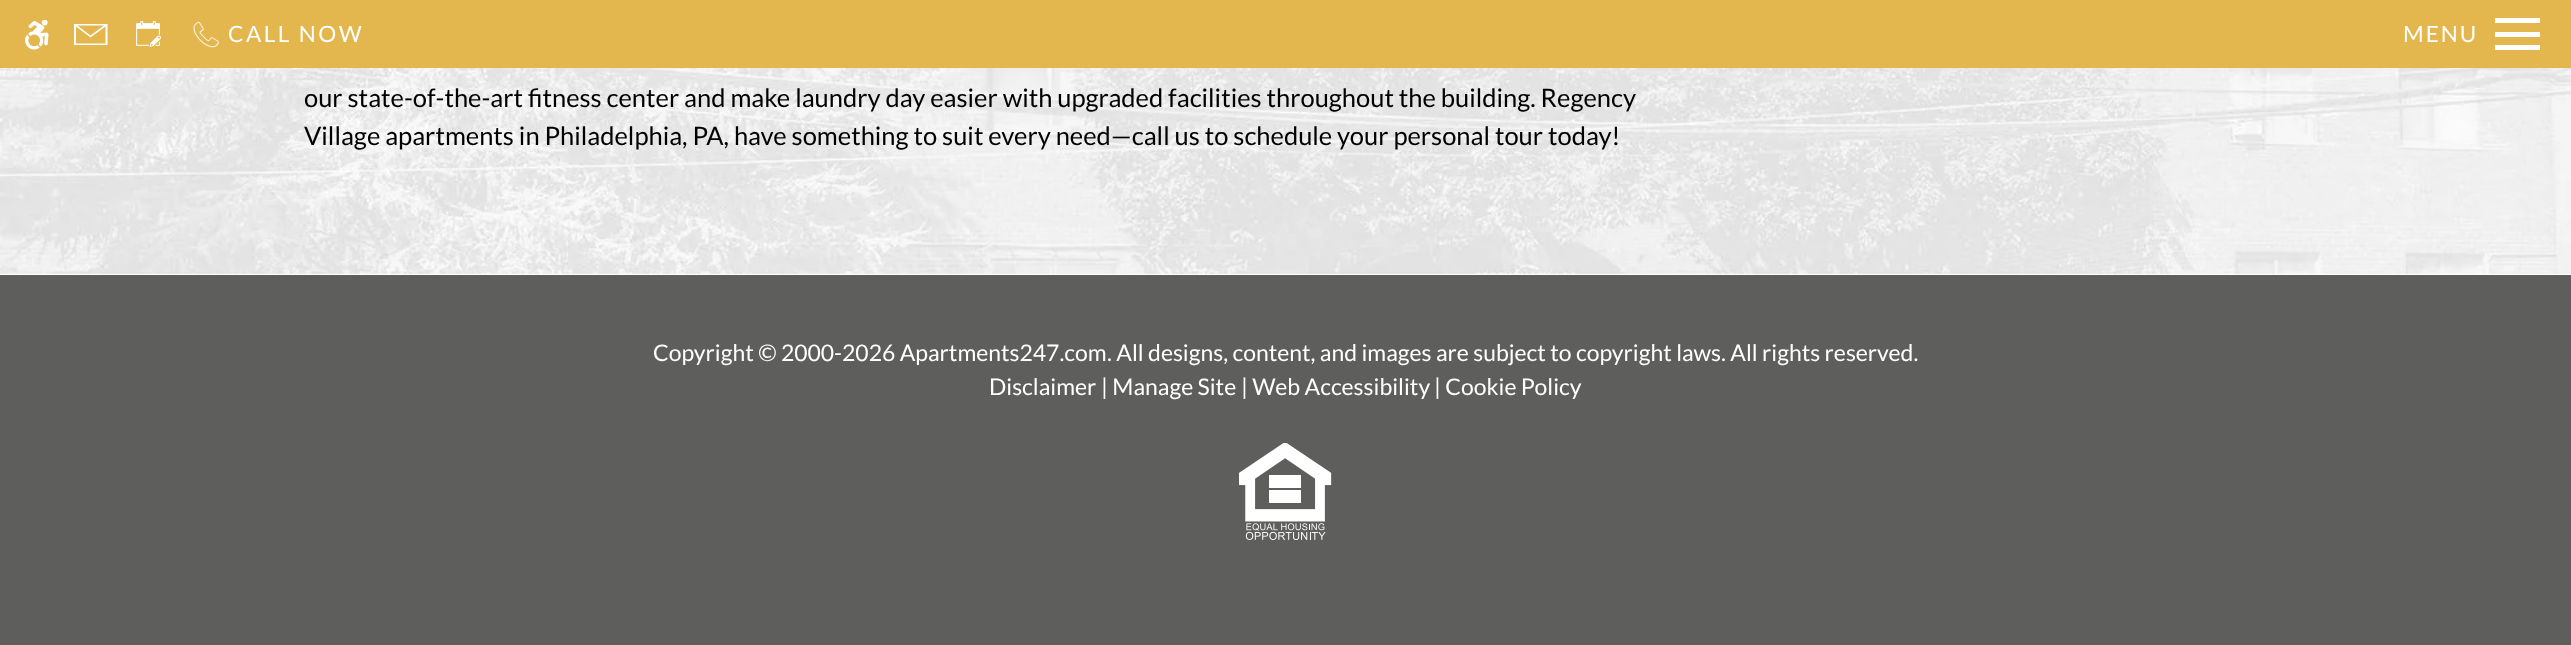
(async () => {
  const canvas = document.querySelector("canvas");
  canvas.width = 2571;
  canvas.height = 645;
  const ctx = canvas.getContext("2d");
  ctx.miterLimit = 4;
  ctx.fontKerning = "normal";
  async function loadImage(src) {
    const img = new Image();
    img.src = src;
    await img.decode();
    return img;
  }
  let path;

  ctx.fillStyle = "#ffffff";
  ctx.fillRect(0, 0, 2571, 645);
  ctx.fillStyle = "#e3b74d";
  ctx.fillRect(0, 0, 2571, 68);
  ctx.drawImage(await loadImage("img/1.png"), 25, 20, 24, 30);
  ctx.fillStyle = "#ffffff";
  path = new Path2D("M105.5 26.5V43.5H76V26.5L90.5 37.5ZM77.5 25.5H104L90.5 35.5ZM74 45H107.5V24H74Z");
  ctx.fill(path);
  ctx.drawImage(await loadImage("img/2.png"), 136, 21, 25, 26);
  ctx.drawImage(await loadImage("img/3.png"), 193, 21, 27, 27);
  for (const [x, y, w, h, color] of [
    [2495, 18, 45, 5, "#ffffff"],
    [2495, 32, 45, 5, "#ffffff"],
    [2495, 45, 45, 5, "#ffffff"],
  ]) {
    ctx.fillStyle = color;
    ctx.fillRect(x, y, w, h);
  }
  ctx.drawImage(await loadImage("img/4.png"), 0, 68, 2571, 206);
  ctx.fillStyle = "#5e5e5c";
  ctx.fillRect(0, 275, 2571, 370);
  ctx.drawImage(await loadImage("img/5.png"), 1239, 443, 93, 97);
  ctx.letterSpacing = "2.5px";
  ctx.font = "22.5px Lato";
  ctx.fillStyle = "#ffffff";
  ctx.fillText("CALL NOW", 228, 42);
  ctx.letterSpacing = "2px";
  ctx.fillText("MENU", 2403, 42);
  ctx.letterSpacing = "0px";
  ctx.font = "25.5px Lato";
  ctx.fillStyle = "#000000";
  ctx.fillText("our state-of-the-art fitness center and make laundry day easier with upgraded facilities throughout the building. Regency", 304, 107);
  ctx.fillText("Village apartments in Philadelphia, PA, have something to suit every need—call us to schedule your personal tour today!", 304, 145);
  ctx.font = "22.95px Lato";
  ctx.fillStyle = "#ffffff";
  for (const [text, x, y] of [
    ["Copyright © 2000-2026 Apartments247.com", 653, 361],
    [". All designs, content, and images are subject to copyright laws. All rights reserved.", 1107, 361],
    ["Disclaimer", 989, 395],
    ["| Manage Site", 1101, 395],
    ["| Web Accessibility", 1241, 395],
    ["| Cookie Policy", 1434, 395],
  ]) {
    ctx.fillText(text, x, y);
  }
})();
